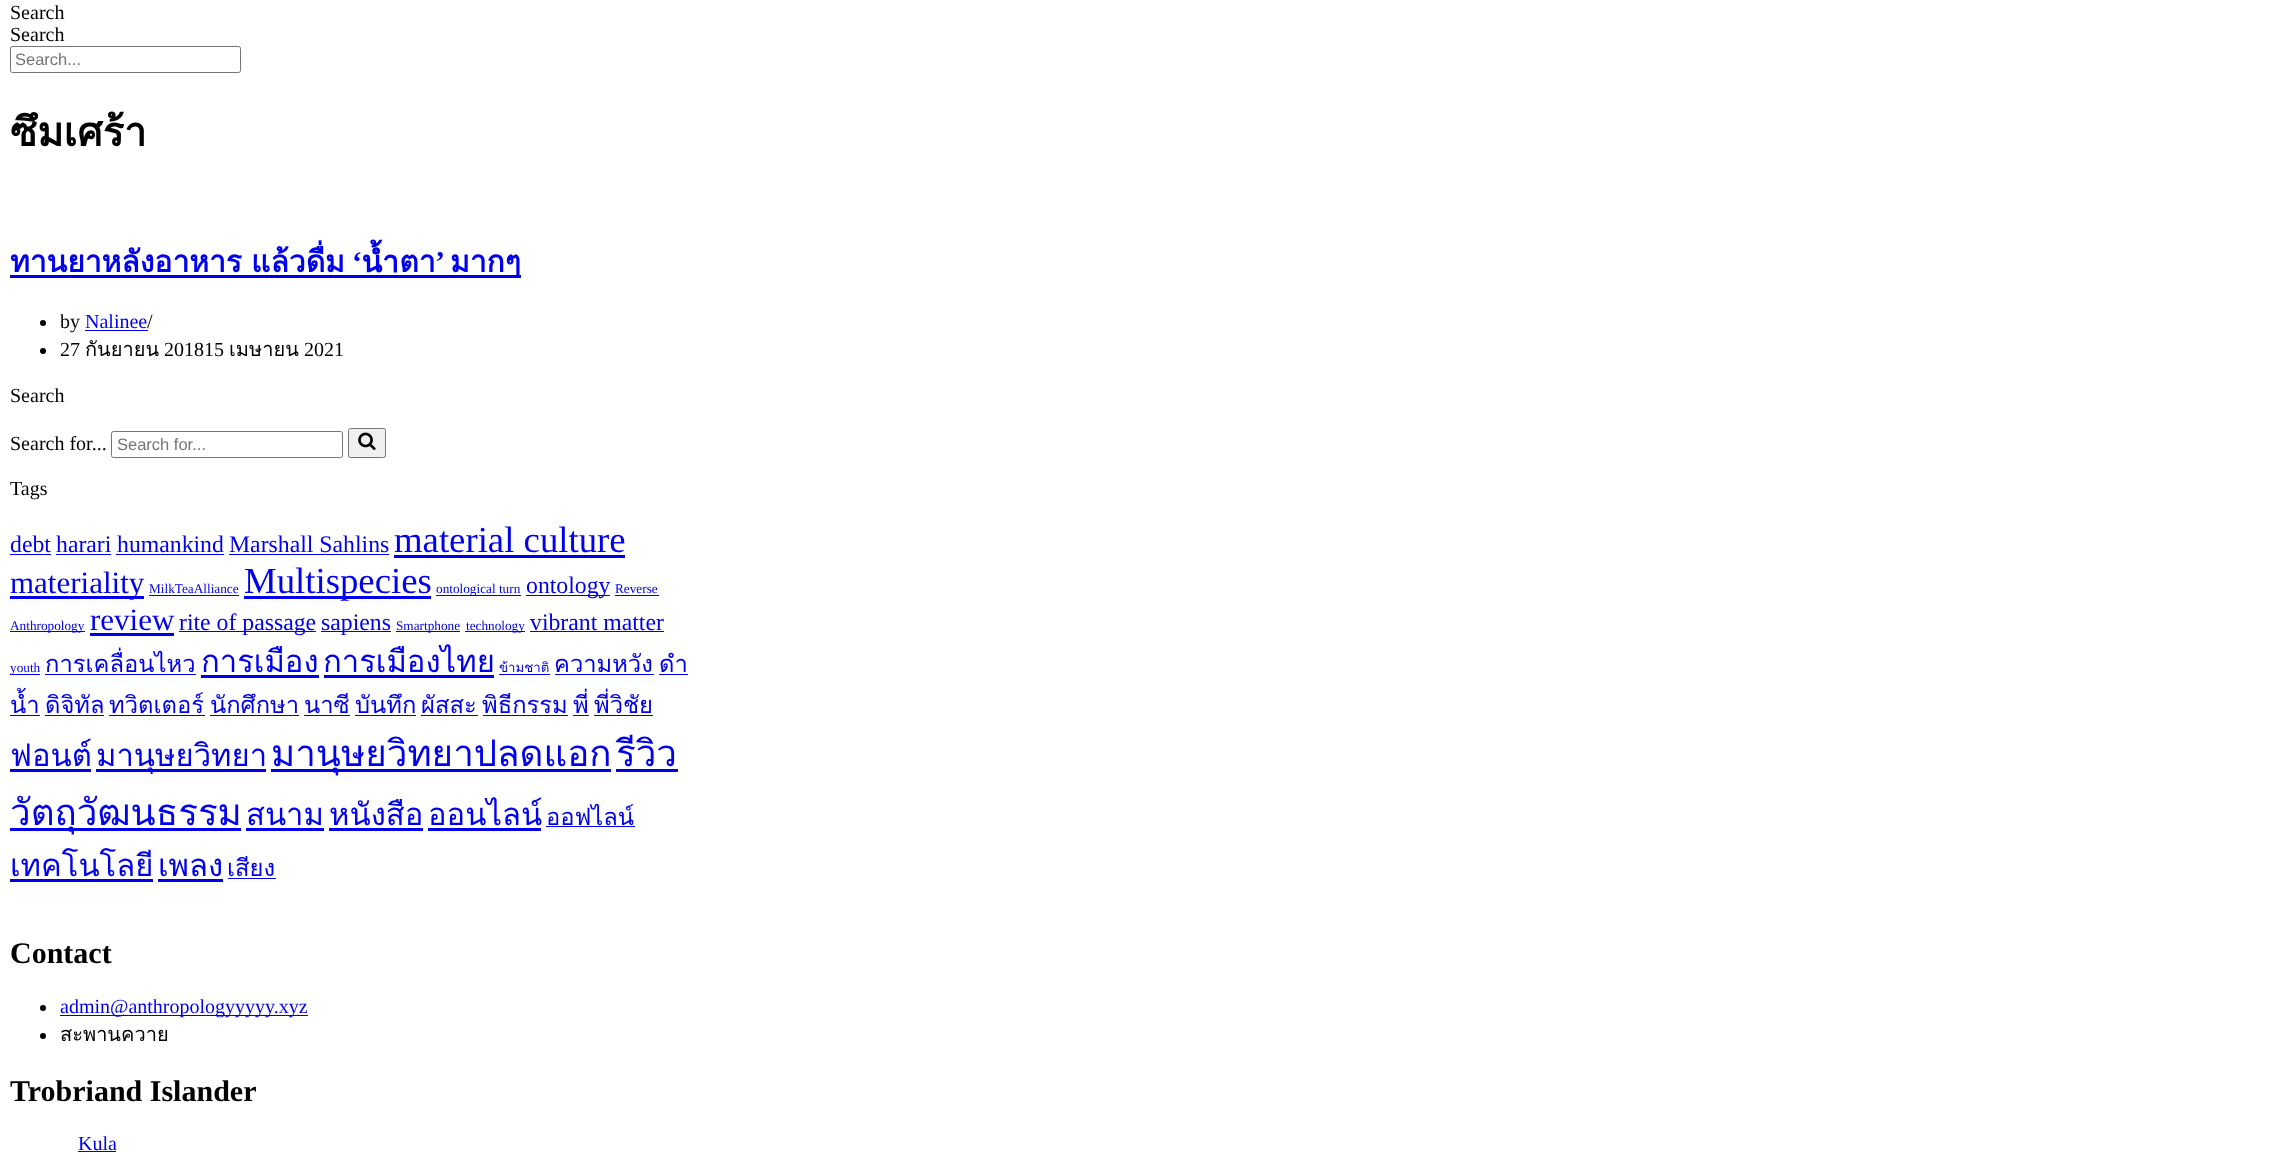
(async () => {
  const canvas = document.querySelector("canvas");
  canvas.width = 2281;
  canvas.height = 1163;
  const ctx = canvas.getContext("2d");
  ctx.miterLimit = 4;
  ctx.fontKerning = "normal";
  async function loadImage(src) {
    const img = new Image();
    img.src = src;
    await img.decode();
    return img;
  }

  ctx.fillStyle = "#ffffff";
  ctx.fillRect(0, 0, 2281, 1163);
  ctx.beginPath();
  ctx.roundRect(10.5, 46.5, 230, 26, 2);
  ctx.strokeStyle = "#767676";
  ctx.stroke();
  ctx.fillStyle = "#0000ee";
  ctx.fillRect(10, 275, 511, 3);
  ctx.fillStyle = "#000000";
  ctx.beginPath();
  ctx.arc(43, 323, 3, 0, Math.PI * 2);
  ctx.fill();
  ctx.fillStyle = "#0000ee";
  ctx.fillRect(85, 330, 63, 1);
  ctx.fillStyle = "#000000";
  ctx.beginPath();
  ctx.arc(43, 351, 3, 0, Math.PI * 2);
  ctx.fill();
  ctx.beginPath();
  ctx.roundRect(111.5, 431.5, 231, 26, 2);
  ctx.stroke();
  ctx.fillStyle = "#efefef";
  ctx.beginPath();
  ctx.roundRect(348.5, 428.5, 37, 29, 2);
  ctx.fill();
  ctx.stroke();
  ctx.drawImage(await loadImage("img/1.png"), 358, 432, 18, 18);
  for (const [x, y, w, h, color] of [
    [10, 554, 41, 1, "#0000ee"],
    [56, 554, 55, 1, "#0000ee"],
    [116, 554, 108, 1, "#0000ee"],
    [229, 554, 160, 1, "#0000ee"],
    [394, 555, 231, 3, "#0000ee"],
    [10, 596, 134, 3, "#0000ee"],
    [149, 595, 90, 1, "#0000ee"],
    [244, 596, 187, 3, "#0000ee"],
    [436, 595, 85, 1, "#0000ee"],
    [526, 595, 84, 1, "#0000ee"],
    [615, 595, 44, 1, "#0000ee"],
    [10, 631, 75, 1, "#0000ee"],
    [90, 633, 84, 3, "#0000ee"],
    [179, 631, 137, 1, "#0000ee"],
    [321, 631, 70, 1, "#0000ee"],
    [396, 631, 64, 1, "#0000ee"],
    [465, 631, 60, 1, "#0000ee"],
    [530, 631, 134, 1, "#0000ee"],
    [10, 674, 30, 1, "#0000ee"],
    [45, 674, 151, 1, "#0000ee"],
    [201, 675, 118, 3, "#0000ee"],
    [324, 675, 170, 3, "#0000ee"],
    [499, 674, 51, 1, "#0000ee"],
    [555, 674, 99, 1, "#0000ee"],
    [659, 674, 29, 1, "#0000ee"],
    [10, 715, 30, 1, "#0000ee"],
    [45, 715, 59, 1, "#0000ee"],
    [109, 715, 96, 1, "#0000ee"],
    [210, 715, 89, 1, "#0000ee"],
    [304, 715, 46, 1, "#0000ee"],
    [355, 715, 61, 1, "#0000ee"],
    [421, 715, 57, 1, "#0000ee"],
    [483, 715, 85, 1, "#0000ee"],
    [573, 715, 16, 1, "#0000ee"],
    [594, 715, 59, 1, "#0000ee"],
    [10, 769, 81, 3, "#0000ee"],
    [96, 769, 170, 3, "#0000ee"],
    [271, 769, 340, 3, "#0000ee"],
    [616, 769, 62, 3, "#0000ee"],
    [10, 828, 231, 3, "#0000ee"],
    [246, 828, 78, 3, "#0000ee"],
    [329, 828, 94, 3, "#0000ee"],
    [428, 828, 113, 3, "#0000ee"],
    [546, 826, 89, 1, "#0000ee"],
    [10, 879, 143, 3, "#0000ee"],
    [158, 879, 65, 3, "#0000ee"],
    [228, 878, 48, 1, "#0000ee"],
  ]) {
    ctx.fillStyle = color;
    ctx.fillRect(x, y, w, h);
  }
  ctx.fillStyle = "#000000";
  ctx.beginPath();
  ctx.arc(43, 1008, 3, 0, Math.PI * 2);
  ctx.fill();
  ctx.fillStyle = "#0000ee";
  ctx.fillRect(60, 1015, 248, 1);
  ctx.fillStyle = "#000000";
  ctx.beginPath();
  ctx.arc(43, 1036, 3, 0, Math.PI * 2);
  ctx.fill();
  ctx.fillStyle = "#0000ee";
  ctx.fillRect(78, 1151, 38, 1);
  ctx.font = "20px Liberation Serif";
  ctx.fillStyle = "#000000";
  ctx.fillText("Search", 10, 19);
  ctx.fillText("Search", 10, 41);
  ctx.font = "16.5px Liberation Sans";
  ctx.fillStyle = "#757575";
  ctx.fillText("Search...", 15, 65);
  ctx.font = "bold 40px Loma";
  ctx.fillStyle = "#000000";
  ctx.fillText("ซึมเศร้า", 10, 146);
  ctx.wordSpacing = "-1px";
  ctx.font = "bold 30px Loma";
  ctx.fillStyle = "#0000ee";
  ctx.fillText("ทานยาหลังอาหาร แล้วดื่ม", 10, 272);
  ctx.wordSpacing = "0px";
  ctx.font = "bold 30px Liberation Serif";
  ctx.fillText("‘", 352, 272);
  ctx.font = "bold 30px Loma";
  ctx.fillText("น้ำตา", 362, 272);
  ctx.font = "bold 30px Liberation Serif";
  ctx.fillText("’", 435, 272);
  ctx.font = "bold 30px Loma";
  ctx.fillText("มากๆ", 450, 272);
  ctx.font = "20px Liberation Serif";
  ctx.fillStyle = "#000000";
  ctx.fillText("by", 60, 328);
  ctx.fillStyle = "#0000ee";
  ctx.fillText("Nalinee", 85, 328);
  ctx.fillStyle = "#000000";
  ctx.fillText("/", 147, 328);
  ctx.fillText("27", 60, 356);
  ctx.font = "20px Loma";
  ctx.fillText("กันยายน", 85, 356);
  ctx.font = "20px Liberation Serif";
  ctx.fillText("201815", 164, 356);
  ctx.font = "20px Loma";
  ctx.fillText("เมษายน", 229, 356);
  ctx.font = "20px Liberation Serif";
  for (const [text, x, y] of [
    ["2021", 304, 356],
    ["Search", 10, 402],
    ["Search for...", 10, 450],
  ]) {
    ctx.fillText(text, x, y);
  }
  ctx.font = "16.5px Liberation Sans";
  ctx.fillStyle = "#757575";
  ctx.fillText("Search for...", 117, 450);
  ctx.font = "20px Liberation Serif";
  ctx.fillStyle = "#000000";
  ctx.fillText("Tags", 10, 495);
  ctx.font = "23.75px Liberation Serif";
  ctx.fillStyle = "#0000ee";
  for (const [text, x, y] of [
    ["debt", 10, 552],
    ["harari", 56, 552],
    ["humankind", 117, 552],
    ["Marshall Sahlins", 229, 552],
  ]) {
    ctx.fillText(text, x, y);
  }
  ctx.font = "36.75px Liberation Serif";
  ctx.fillText("material culture", 394, 552);
  ctx.font = "31px Liberation Serif";
  ctx.fillText("materiality", 10, 593);
  ctx.font = "13.25px Liberation Serif";
  ctx.fillText("MilkTeaAlliance", 149, 593);
  ctx.font = "36.75px Liberation Serif";
  ctx.fillText("Multispecies", 244, 593);
  ctx.font = "13.25px Liberation Serif";
  ctx.fillText("ontological turn", 436, 593);
  ctx.font = "23.75px Liberation Serif";
  ctx.fillText("ontology", 526, 593);
  ctx.font = "13.25px Liberation Serif";
  ctx.fillText("Reverse", 615, 593);
  ctx.fillText("Anthropology", 10, 630);
  ctx.font = "31px Liberation Serif";
  ctx.fillText("review", 90, 630);
  ctx.font = "23.75px Liberation Serif";
  ctx.fillText("rite of passage", 179, 630);
  ctx.fillText("sapiens", 321, 630);
  ctx.font = "13.25px Liberation Serif";
  ctx.fillText("Smartphone", 396, 630);
  ctx.fillText("technology", 466, 630);
  ctx.font = "23.75px Liberation Serif";
  ctx.fillText("vibrant matter", 530, 630);
  ctx.font = "13.25px Liberation Serif";
  ctx.fillText("youth", 10, 672);
  ctx.font = "23.75px Loma";
  ctx.fillText("การเคลื่อนไหว", 45, 672);
  ctx.font = "31px Loma";
  ctx.fillText("การเมือง", 201, 672);
  ctx.fillText("การเมืองไทย", 323, 672);
  ctx.font = "13.25px Loma";
  ctx.fillText("ข้ามชาติ", 499, 672);
  ctx.font = "23.75px Loma";
  for (const [text, x, y] of [
    ["ความหวัง", 554, 672],
    ["ดำ", 659, 672],
    ["น้ำ", 10, 713],
    ["ดิจิทัล", 45, 713],
    ["ทวิตเตอร์", 109, 713],
    ["นักศึกษา", 210, 713],
    ["นาซี", 304, 713],
    ["บันทึก", 355, 713],
    ["ผัสสะ", 421, 713],
    ["พิธีกรรม", 482, 713],
    ["พี่", 573, 713],
    ["พี่วิชัย", 594, 713],
  ]) {
    ctx.fillText(text, x, y);
  }
  ctx.font = "31px Loma";
  ctx.fillText("ฟอนต์", 10, 766);
  ctx.fillText("มานุษยวิทยา", 96, 766);
  ctx.font = "36.75px Loma";
  for (const [text, x, y] of [
    ["มานุษยวิทยาปลดแอก", 271, 766],
    ["รีวิว", 616, 766],
    ["วัตถุวัฒนธรรม", 10, 825],
  ]) {
    ctx.fillText(text, x, y);
  }
  ctx.font = "31px Loma";
  for (const [text, x, y] of [
    ["สนาม", 246, 825],
    ["หนังสือ", 329, 825],
    ["ออนไลน์", 428, 825],
  ]) {
    ctx.fillText(text, x, y);
  }
  ctx.font = "23.75px Loma";
  ctx.fillText("ออฟไลน์", 546, 825);
  ctx.font = "31px Loma";
  ctx.fillText("เทคโนโลยี", 10, 876);
  ctx.fillText("เพลง", 158, 876);
  ctx.font = "23.75px Loma";
  ctx.fillText("เสียง", 227, 876);
  ctx.font = "bold 30px Liberation Serif";
  ctx.fillStyle = "#000000";
  ctx.fillText("Contact", 10, 963);
  ctx.font = "20px Liberation Serif";
  ctx.fillStyle = "#0000ee";
  ctx.fillText("admin@anthropologyyyyy.xyz", 60, 1013);
  ctx.font = "20px Loma";
  ctx.fillStyle = "#000000";
  ctx.fillText("สะพานควาย", 60, 1041);
  ctx.font = "bold 30px Liberation Serif";
  ctx.fillText("Trobriand Islander", 10, 1101);
  ctx.font = "20px Liberation Serif";
  ctx.fillStyle = "#0000ee";
  ctx.fillText("Kula", 78, 1150);
})();
